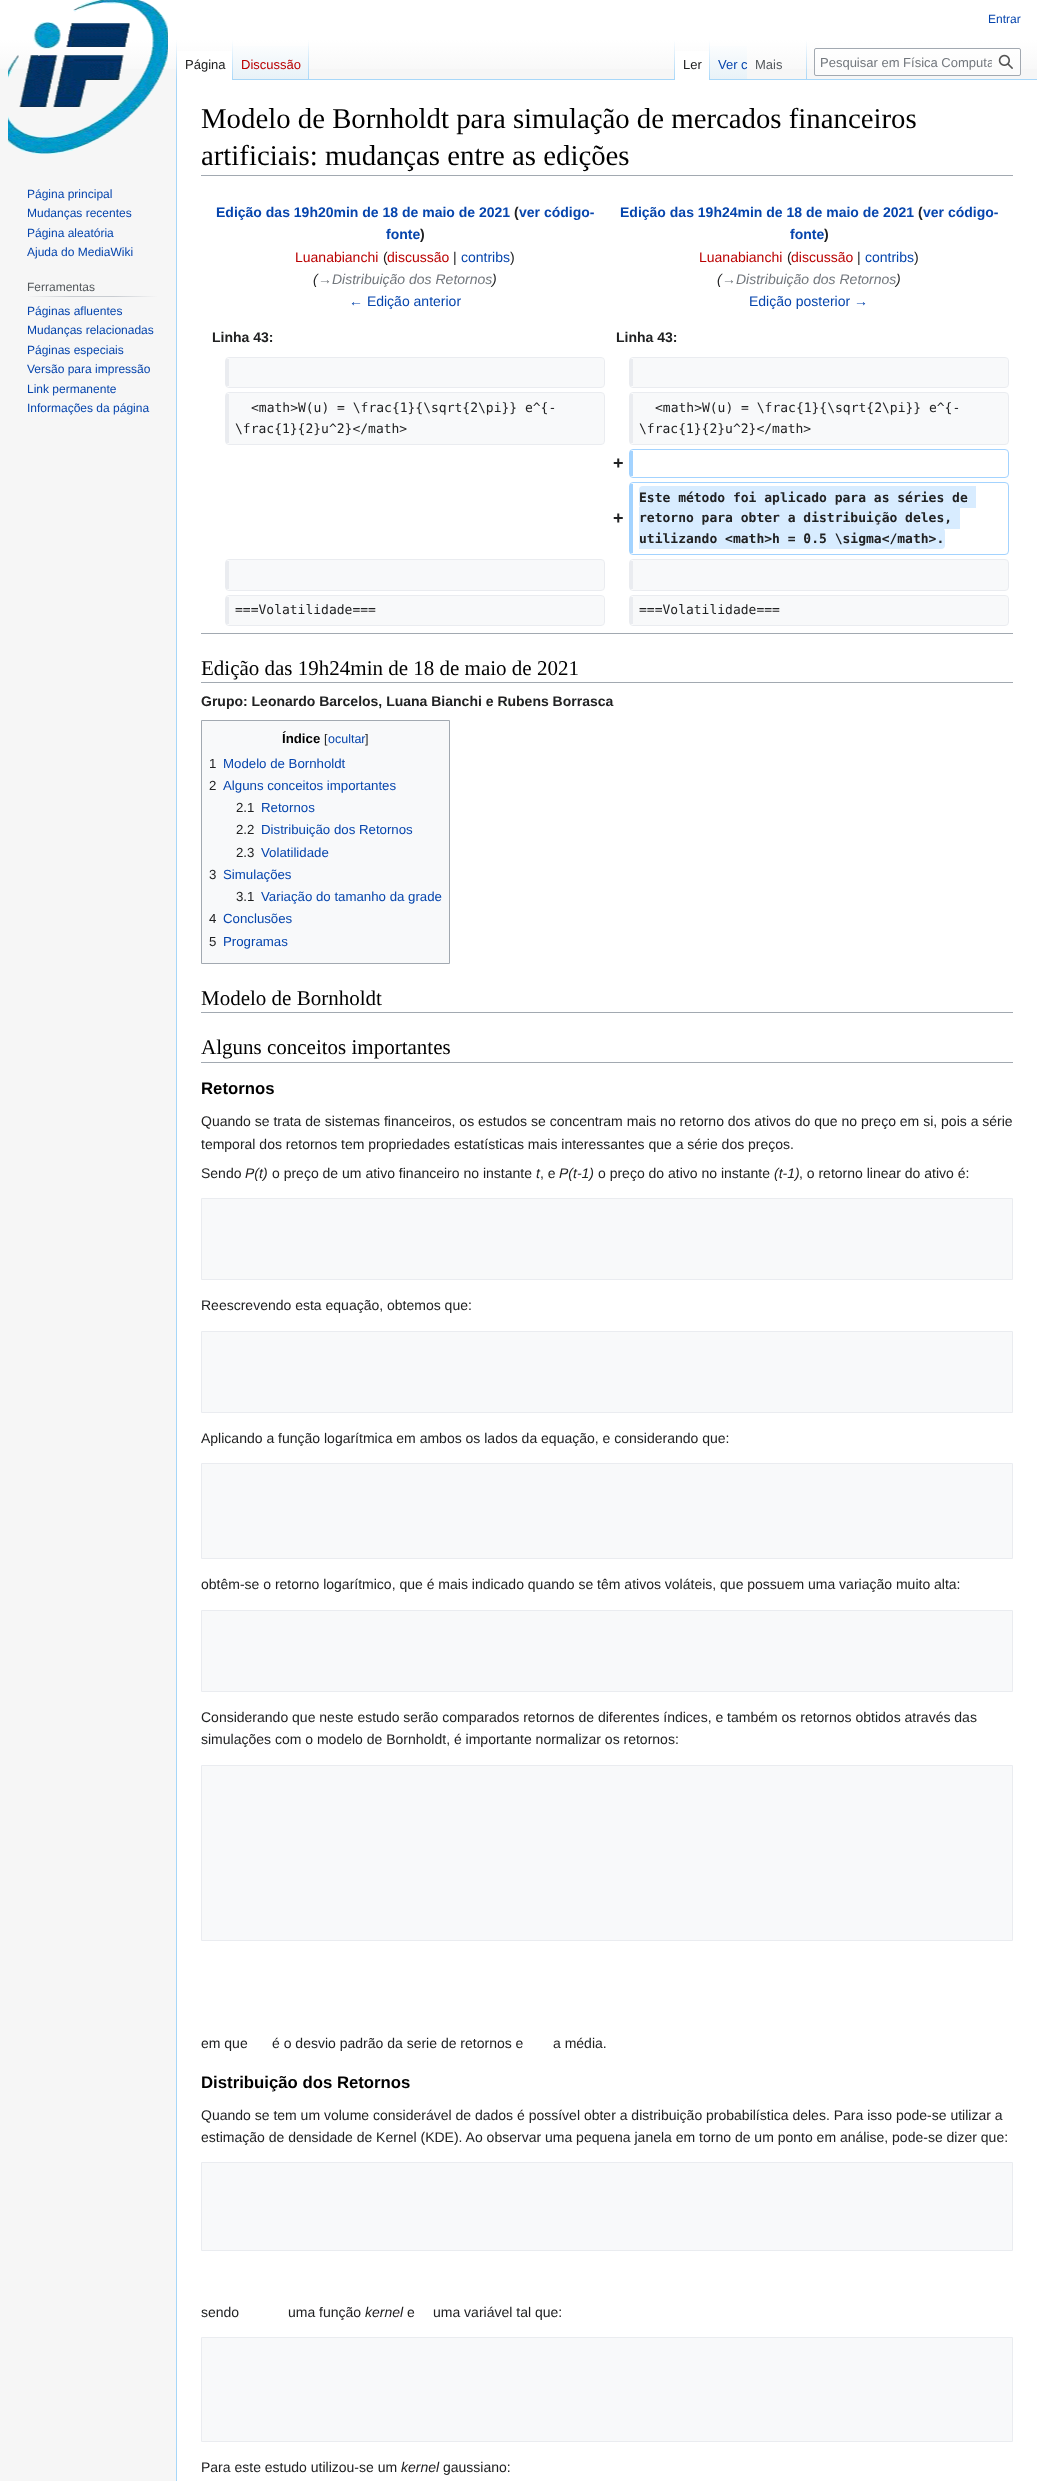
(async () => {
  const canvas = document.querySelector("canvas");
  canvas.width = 1037;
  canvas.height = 2481;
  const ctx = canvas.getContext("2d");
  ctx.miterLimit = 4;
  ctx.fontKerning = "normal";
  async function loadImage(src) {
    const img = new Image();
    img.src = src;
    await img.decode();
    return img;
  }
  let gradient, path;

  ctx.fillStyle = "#f6f6f6";
  ctx.fillRect(0, 0, 1037, 2481);
  gradient = ctx.createLinearGradient(519, 0, 519, 80);
  gradient.addColorStop(0.5, "#ffffff");
  gradient.addColorStop(1, "#f6f6f6");
  ctx.fillStyle = gradient;
  ctx.fillRect(0, 0, 1037, 69);
  ctx.fillStyle = "#a7d7f9";
  ctx.fillRect(176, 79, 1, 2402);
  gradient = ctx.createLinearGradient(177, 40, 177, 80);
  gradient.addColorStop(0, "rgba(167, 215, 249, 0)");
  gradient.addColorStop(1, "#a7d7f9");
  ctx.fillStyle = gradient;
  ctx.fillRect(176, 40, 1, 40);
  ctx.fillStyle = "#ffffff";
  ctx.fillRect(177, 51, 55, 29);
  gradient = ctx.createLinearGradient(233, 40, 233, 80);
  gradient.addColorStop(0, "#ffffff");
  gradient.addColorStop(1, "#a7d7f9");
  ctx.fillStyle = gradient;
  ctx.fillRect(232, 40, 1, 40);
  gradient = ctx.createLinearGradient(271, 80, 271, 40);
  gradient.addColorStop(0, "#77c1f6");
  gradient.addColorStop(0.03, "#e8f2f8");
  gradient.addColorStop(1, "#ffffff");
  ctx.fillStyle = gradient;
  ctx.fillRect(233, 46, 76, 34);
  gradient = ctx.createLinearGradient(309, 40, 309, 80);
  gradient.addColorStop(0, "rgba(167, 215, 249, 0)");
  gradient.addColorStop(1, "#a7d7f9");
  ctx.fillStyle = gradient;
  ctx.fillRect(308, 40, 1, 40);
  ctx.fillStyle = "#a7d7f9";
  ctx.fillRect(309, 79, 728, 1);
  gradient = ctx.createLinearGradient(675, 40, 675, 80);
  gradient.addColorStop(0, "rgba(167, 215, 249, 0)");
  gradient.addColorStop(1, "#a7d7f9");
  ctx.fillStyle = gradient;
  ctx.fillRect(674, 40, 1, 40);
  ctx.fillStyle = "#ffffff";
  ctx.fillRect(675, 51, 34, 29);
  gradient = ctx.createLinearGradient(710, 40, 710, 80);
  gradient.addColorStop(0, "#ffffff");
  gradient.addColorStop(1, "#a7d7f9");
  ctx.fillStyle = gradient;
  ctx.fillRect(709, 40, 1, 40);
  gradient = ctx.createLinearGradient(729, 80, 729, 40);
  gradient.addColorStop(0, "#77c1f6");
  gradient.addColorStop(0.03, "#e8f2f8");
  gradient.addColorStop(1, "#ffffff");
  ctx.fillStyle = gradient;
  ctx.fillRect(710, 46, 37, 33);
  gradient = ctx.createLinearGradient(807, 40, 807, 80);
  gradient.addColorStop(0, "rgba(167, 215, 249, 0)");
  gradient.addColorStop(1, "#a7d7f9");
  ctx.fillStyle = gradient;
  ctx.fillRect(806, 40, 1, 40);
  ctx.fillStyle = "rgba(255, 255, 255, 0.5)";
  ctx.beginPath();
  ctx.roundRect(814.5, 48.5, 206, 27, 1.5);
  ctx.fill();
  ctx.strokeStyle = "#a2a9b1";
  ctx.stroke();
  ctx.drawImage(await loadImage("img/1.png"), 998, 54, 15, 15);
  ctx.drawImage(await loadImage("img/2.png"), 8, 0, 160, 154);
  gradient = ctx.createLinearGradient(27, 297, 158, 297);
  gradient.addColorStop(0, "#f6f6f6");
  gradient.addColorStop(0.33, "#c8ccd1");
  gradient.addColorStop(0.66, "#c8ccd1");
  gradient.addColorStop(1, "#f6f6f6");
  ctx.fillStyle = gradient;
  ctx.fillRect(27, 296, 131, 1);
  ctx.fillStyle = "#ffffff";
  ctx.fillRect(177, 80, 860, 2401);
  ctx.fillStyle = "#a2a9b1";
  ctx.fillRect(201, 175, 812, 1);
  ctx.fillStyle = "#f8f9fa";
  path = new Path2D("M229 358H601L603 359C605 362 604 373 604 376C604 379 606 387 601 387H229Z");
  ctx.fill(path);
  ctx.beginPath();
  ctx.roundRect(225.5, 357.5, 379, 30, 3.5);
  ctx.strokeStyle = "#eaecf0";
  ctx.stroke();
  ctx.fillStyle = "#eaecf0";
  ctx.fillRect(226, 359, 3, 27);
  ctx.fillStyle = "#f8f9fa";
  path = new Path2D("M633 358H1005L1007 359C1009 362 1008 373 1008 376C1008 379 1010 387 1005 387H633Z");
  ctx.fill(path);
  ctx.beginPath();
  ctx.roundRect(629.5, 357.5, 379, 30, 3.5);
  ctx.stroke();
  ctx.fillStyle = "#eaecf0";
  ctx.fillRect(630, 359, 3, 27);
  ctx.fillStyle = "#f8f9fa";
  path = new Path2D("M229 393H601C603 393 604 394 604 396V441C604 443 603 444 601 444H229Z");
  ctx.fill(path);
  ctx.beginPath();
  ctx.roundRect(225.5, 392.5, 379, 52, 3.5);
  ctx.stroke();
  ctx.fillStyle = "#eaecf0";
  ctx.fillRect(226, 394, 3, 49);
  ctx.fillStyle = "#f8f9fa";
  path = new Path2D("M633 393H1005C1007 393 1008 394 1008 396V441C1008 443 1007 444 1005 444H633Z");
  ctx.fill(path);
  ctx.beginPath();
  ctx.roundRect(629.5, 392.5, 379, 52, 3.5);
  ctx.stroke();
  ctx.fillStyle = "#eaecf0";
  ctx.fillRect(630, 394, 3, 49);
  ctx.beginPath();
  ctx.roundRect(629.5, 449.5, 379, 28, 3.5);
  ctx.strokeStyle = "#a3d3ff";
  ctx.stroke();
  ctx.fillStyle = "#a3d3ff";
  ctx.fillRect(630, 451, 3, 25);
  ctx.beginPath();
  ctx.roundRect(629.5, 482.5, 379, 72, 3.5);
  ctx.stroke();
  ctx.fillRect(630, 484, 3, 69);
  ctx.fillStyle = "#d8ecff";
  ctx.beginPath();
  ctx.roundRect(639, 486, 337, 22, [4, 0, 0, 4]);
  ctx.fill();
  ctx.fillRect(639, 507, 321, 22);
  ctx.beginPath();
  ctx.roundRect(639, 528, 306, 21, [0, 4, 4, 0]);
  ctx.fill();
  ctx.fillStyle = "#f8f9fa";
  path = new Path2D("M229 560H601C603 560 604 561 604 563V579C604 582 606 590 601 590H229Z");
  ctx.fill(path);
  ctx.beginPath();
  ctx.roundRect(225.5, 559.5, 379, 31, 3.5);
  ctx.strokeStyle = "#eaecf0";
  ctx.stroke();
  ctx.fillStyle = "#eaecf0";
  ctx.fillRect(226, 561, 3, 28);
  ctx.fillStyle = "#f8f9fa";
  path = new Path2D("M633 560H1005C1007 560 1008 561 1008 563V579C1008 582 1010 590 1005 590H633Z");
  ctx.fill(path);
  ctx.beginPath();
  ctx.roundRect(629.5, 559.5, 379, 31, 3.5);
  ctx.stroke();
  ctx.fillStyle = "#eaecf0";
  ctx.fillRect(630, 561, 3, 28);
  ctx.fillStyle = "#f8f9fa";
  path = new Path2D("M229 596H601L603 597C605 600 604 611 604 614C604 617 606 625 601 625H229Z");
  ctx.fill(path);
  ctx.beginPath();
  ctx.roundRect(225.5, 595.5, 379, 30, 3.5);
  ctx.stroke();
  ctx.fillStyle = "#eaecf0";
  ctx.fillRect(226, 597, 3, 27);
  ctx.fillStyle = "#f8f9fa";
  path = new Path2D("M633 596H1005L1007 597C1009 600 1008 611 1008 614C1008 617 1010 625 1005 625H633Z");
  ctx.fill(path);
  ctx.beginPath();
  ctx.roundRect(629.5, 595.5, 379, 30, 3.5);
  ctx.stroke();
  for (const [x, y, w, h, color] of [
    [630, 597, 3, 27, "#eaecf0"],
    [201, 633, 812, 1, "#a2a9b1"],
    [201, 682, 812, 1, "#a2a9b1"],
  ]) {
    ctx.fillStyle = color;
    ctx.fillRect(x, y, w, h);
  }
  ctx.fillStyle = "#f8f9fa";
  ctx.beginPath();
  ctx.rect(201.5, 720.5, 248, 243);
  ctx.fill();
  ctx.strokeStyle = "#a2a9b1";
  ctx.stroke();
  ctx.fillStyle = "#a2a9b1";
  ctx.fillRect(201, 1012, 812, 1);
  ctx.fillRect(201, 1062, 812, 1);
  ctx.fillStyle = "#f8f9fa";
  ctx.beginPath();
  ctx.rect(201.5, 1198.5, 811, 81);
  ctx.fill();
  ctx.strokeStyle = "#eaecf0";
  ctx.stroke();
  ctx.beginPath();
  ctx.rect(201.5, 1331.5, 811, 81);
  ctx.fill();
  ctx.stroke();
  ctx.beginPath();
  ctx.rect(201.5, 1463.5, 811, 95);
  ctx.fill();
  ctx.stroke();
  ctx.beginPath();
  ctx.rect(201.5, 1610.5, 811, 81);
  ctx.fill();
  ctx.stroke();
  ctx.beginPath();
  ctx.rect(201.5, 1765.5, 811, 175);
  ctx.fill();
  ctx.stroke();
  ctx.beginPath();
  ctx.rect(201.5, 2162.5, 811, 88);
  ctx.fill();
  ctx.stroke();
  ctx.beginPath();
  ctx.rect(201.5, 2337.5, 811, 104);
  ctx.fill();
  ctx.stroke();
  ctx.font = "12px Liberation Sans";
  ctx.fillStyle = "#0645ad";
  ctx.fillText("Entrar", 988, 23);
  ctx.font = "13px Liberation Sans";
  ctx.fillStyle = "#202122";
  ctx.fillText("Página", 185, 69);
  ctx.fillStyle = "#ba0000";
  ctx.fillText("Discussão", 241, 69);
  ctx.fillStyle = "#202122";
  ctx.fillText("Ler", 683, 69);
  ctx.fillStyle = "#0645ad";
  ctx.fillText("Ver c", 718, 69);
  ctx.fillStyle = "#54595d";
  ctx.fillText("Mais", 755, 69);
  ctx.save();
  ctx.beginPath();
  ctx.rect(820, 55, 172, 15);
  ctx.clip();
  ctx.fillStyle = "#72777d";
  ctx.fillText("Pesquisar em Física Computa", 820, 67);
  ctx.restore();
  ctx.font = "12px Liberation Sans";
  ctx.fillStyle = "#0645ad";
  for (const [text, x, y] of [
    ["Página principal", 27, 198],
    ["Mudanças recentes", 27, 217],
    ["Página aleatória", 27, 237],
    ["Ajuda do MediaWiki", 27, 256],
  ]) {
    ctx.fillText(text, x, y);
  }
  ctx.fillStyle = "#54595d";
  ctx.fillText("Ferramentas", 27, 291);
  ctx.fillStyle = "#0645ad";
  for (const [text, x, y] of [
    ["Páginas afluentes", 27, 315],
    ["Mudanças relacionadas", 27, 334],
    ["Páginas especiais", 27, 354],
    ["Versão para impressão", 27, 373],
    ["Link permanente", 27, 393],
    ["Informações da página", 27, 412],
  ]) {
    ctx.fillText(text, x, y);
  }
  ctx.font = "28.8px Liberation Serif";
  ctx.fillStyle = "#000000";
  ctx.fillText("Modelo de Bornholdt para simulação de mercados financeiros", 201, 128);
  ctx.fillText("artificiais: mudanças entre as edições", 201, 165);
  ctx.font = "bold 14px Liberation Sans";
  ctx.fillStyle = "#0645ad";
  ctx.fillText("Edição das 19h20min de 18 de maio de 2021", 216, 217);
  ctx.fillStyle = "#202122";
  ctx.fillText("(", 514, 217);
  ctx.fillStyle = "#0645ad";
  ctx.fillText("ver código-", 519, 217);
  ctx.fillText("fonte", 386, 239);
  ctx.fillStyle = "#202122";
  ctx.fillText(")", 420, 239);
  ctx.font = "14px Liberation Sans";
  ctx.fillStyle = "#ba0000";
  ctx.fillText("Luanabianchi", 295, 262);
  ctx.fillStyle = "#202122";
  ctx.fillText("(", 383, 262);
  ctx.fillStyle = "#ba0000";
  ctx.fillText("discussão", 387, 262);
  ctx.fillStyle = "#202122";
  ctx.fillText("|", 453, 262);
  ctx.fillStyle = "#0645ad";
  ctx.fillText("contribs", 461, 262);
  ctx.fillStyle = "#202122";
  ctx.fillText(")", 510, 262);
  ctx.font = "italic 14px Liberation Sans";
  ctx.fillText("(", 313, 284);
  ctx.fillStyle = "#72777d";
  ctx.fillText("→Distribuição dos Retornos", 318, 284);
  ctx.fillStyle = "#202122";
  ctx.fillText(")", 492, 284);
  ctx.font = "14px Liberation Sans";
  ctx.fillStyle = "#0645ad";
  ctx.fillText("← Edição anterior", 349, 306);
  ctx.font = "bold 14px Liberation Sans";
  ctx.fillText("Edição das 19h24min de 18 de maio de 2021", 620, 217);
  ctx.fillStyle = "#202122";
  ctx.fillText("(", 918, 217);
  ctx.fillStyle = "#0645ad";
  ctx.fillText("ver código-", 923, 217);
  ctx.fillText("fonte", 790, 239);
  ctx.fillStyle = "#202122";
  ctx.fillText(")", 824, 239);
  ctx.font = "14px Liberation Sans";
  ctx.fillStyle = "#ba0000";
  ctx.fillText("Luanabianchi", 699, 262);
  ctx.fillStyle = "#202122";
  ctx.fillText("(", 787, 262);
  ctx.fillStyle = "#ba0000";
  ctx.fillText("discussão", 791, 262);
  ctx.fillStyle = "#202122";
  ctx.fillText("|", 857, 262);
  ctx.fillStyle = "#0645ad";
  ctx.fillText("contribs", 865, 262);
  ctx.fillStyle = "#202122";
  ctx.fillText(")", 914, 262);
  ctx.font = "italic 14px Liberation Sans";
  ctx.fillText("(", 717, 284);
  ctx.fillStyle = "#72777d";
  ctx.fillText("→Distribuição dos Retornos", 722, 284);
  ctx.fillStyle = "#202122";
  ctx.fillText(")", 896, 284);
  ctx.font = "14px Liberation Sans";
  ctx.fillStyle = "#0645ad";
  ctx.fillText("Edição posterior →", 749, 306);
  ctx.font = "bold 14px Liberation Sans";
  ctx.fillStyle = "#202122";
  ctx.fillText("Linha 43:", 212, 342);
  ctx.fillText("Linha 43:", 616, 342);
  ctx.font = "13px DejaVu Sans Mono";
  for (const [text, x, y] of [
    ["<math>W(u) = \\frac{1}{\\sqrt{2\\pi}} e^{-", 251, 412],
    ["\\frac{1}{2}u^2}<\/math>", 235, 433],
    ["<math>W(u) = \\frac{1}{\\sqrt{2\\pi}} e^{-", 655, 412],
    ["\\frac{1}{2}u^2}<\/math>", 639, 433],
  ]) {
    ctx.fillText(text, x, y);
  }
  ctx.font = "bold 18px Liberation Sans";
  ctx.fillText("+", 613, 469);
  ctx.fillText("+", 613, 524);
  ctx.font = "bold 13px DejaVu Sans Mono";
  for (const [text, x, y] of [
    ["Este método foi aplicado para as séries de", 639, 502],
    ["retorno para obter a distribuição deles,", 639, 522],
    ["utilizando <math>h = 0.5 \\sigma<\/math>.", 639, 543],
  ]) {
    ctx.fillText(text, x, y);
  }
  ctx.font = "13px DejaVu Sans Mono";
  ctx.fillText("===Volatilidade===", 235, 614);
  ctx.fillText("===Volatilidade===", 639, 614);
  ctx.font = "21px Liberation Serif";
  ctx.fillStyle = "#000000";
  ctx.fillText("Edição das 19h24min de 18 de maio de 2021", 201, 675);
  ctx.font = "bold 14px Liberation Sans";
  ctx.fillStyle = "#202122";
  ctx.fillText("Grupo: Leonardo Barcelos, Luana Bianchi e Rubens Borrasca", 201, 706);
  ctx.font = "bold 13.25px Liberation Sans";
  ctx.fillStyle = "#000000";
  ctx.fillText("Índice", 282, 743);
  ctx.font = "12.5px Liberation Sans";
  ctx.fillStyle = "#202122";
  ctx.fillText("[", 324, 743);
  ctx.fillStyle = "#0645ad";
  ctx.fillText("ocultar", 328, 743);
  ctx.fillStyle = "#202122";
  ctx.fillText("]", 365, 743);
  ctx.font = "13.25px Liberation Sans";
  ctx.fillText("1", 209, 768);
  ctx.fillStyle = "#0645ad";
  ctx.fillText("Modelo de Bornholdt", 223, 768);
  ctx.fillStyle = "#202122";
  ctx.fillText("2", 209, 790);
  ctx.fillStyle = "#0645ad";
  ctx.fillText("Alguns conceitos importantes", 223, 790);
  ctx.fillStyle = "#202122";
  ctx.fillText("2.1", 236, 812);
  ctx.fillStyle = "#0645ad";
  ctx.fillText("Retornos", 261, 812);
  ctx.fillStyle = "#202122";
  ctx.fillText("2.2", 236, 834);
  ctx.fillStyle = "#0645ad";
  ctx.fillText("Distribuição dos Retornos", 261, 834);
  ctx.fillStyle = "#202122";
  ctx.fillText("2.3", 236, 857);
  ctx.fillStyle = "#0645ad";
  ctx.fillText("Volatilidade", 261, 857);
  ctx.fillStyle = "#202122";
  ctx.fillText("3", 209, 879);
  ctx.fillStyle = "#0645ad";
  ctx.fillText("Simulações", 223, 879);
  ctx.fillStyle = "#202122";
  ctx.fillText("3.1", 236, 901);
  ctx.fillStyle = "#0645ad";
  ctx.fillText("Variação do tamanho da grade", 261, 901);
  ctx.fillStyle = "#202122";
  ctx.fillText("4", 209, 923);
  ctx.fillStyle = "#0645ad";
  ctx.fillText("Conclusões", 223, 923);
  ctx.fillStyle = "#202122";
  ctx.fillText("5", 209, 946);
  ctx.fillStyle = "#0645ad";
  ctx.fillText("Programas", 223, 946);
  ctx.font = "21px Liberation Serif";
  ctx.fillStyle = "#000000";
  ctx.fillText("Modelo de Bornholdt", 201, 1005);
  ctx.fillText("Alguns conceitos importantes", 201, 1054);
  ctx.font = "bold 16.75px Liberation Sans";
  ctx.fillText("Retornos", 201, 1094);
  ctx.font = "14px Liberation Sans";
  ctx.fillStyle = "#202122";
  for (const [text, x, y] of [
    ["Quando se trata de sistemas financeiros, os estudos se concentram mais no retorno dos ativos do que no preço em si, pois a série", 201, 1126],
    ["temporal dos retornos tem propriedades estatísticas mais interessantes que a série dos preços.", 201, 1149],
    ["Sendo", 201, 1178],
  ]) {
    ctx.fillText(text, x, y);
  }
  ctx.font = "italic 14px Liberation Sans";
  ctx.fillText("P(t)", 245, 1178);
  ctx.font = "14px Liberation Sans";
  ctx.fillText("o preço de um ativo financeiro no instante", 272, 1178);
  ctx.font = "italic 14px Liberation Sans";
  ctx.fillText("t", 536, 1178);
  ctx.font = "14px Liberation Sans";
  ctx.fillText(", e", 540, 1178);
  ctx.font = "italic 14px Liberation Sans";
  ctx.fillText("P(t-1)", 559, 1178);
  ctx.font = "14px Liberation Sans";
  ctx.fillText("o preço do ativo no instante", 598, 1178);
  ctx.font = "italic 14px Liberation Sans";
  ctx.fillText("(t-1)", 774, 1178);
  ctx.font = "14px Liberation Sans";
  for (const [text, x, y] of [
    [", o retorno linear do ativo é:", 799, 1178],
    ["Reescrevendo esta equação, obtemos que:", 201, 1310],
    ["Aplicando a função logarítmica em ambos os lados da equação, e considerando que:", 201, 1443],
    ["obtêm-se o retorno logarítmico, que é mais indicado quando se têm ativos voláteis, que possuem uma variação muito alta:", 201, 1589],
    ["Considerando que neste estudo serão comparados retornos de diferentes índices, e também os retornos obtidos através das", 201, 1722],
    ["simulações com o modelo de Bornholdt, é importante normalizar os retornos:", 201, 1744],
    ["em que", 201, 2048],
    ["é o desvio padrão da serie de retornos e", 272, 2048],
    ["a média.", 553, 2048],
  ]) {
    ctx.fillText(text, x, y);
  }
  ctx.font = "bold 16.75px Liberation Sans";
  ctx.fillStyle = "#000000";
  ctx.fillText("Distribuição dos Retornos", 201, 2088);
  ctx.font = "14px Liberation Sans";
  ctx.fillStyle = "#202122";
  for (const [text, x, y] of [
    ["Quando se tem um volume considerável de dados é possível obter a distribuição probabilística deles. Para isso pode-se utilizar a", 201, 2120],
    ["estimação de densidade de Kernel (KDE). Ao observar uma pequena janela em torno de um ponto em análise, pode-se dizer que:", 201, 2142],
    ["sendo", 201, 2317],
    ["uma função", 288, 2317],
  ]) {
    ctx.fillText(text, x, y);
  }
  ctx.font = "italic 14px Liberation Sans";
  ctx.fillText("kernel", 365, 2317);
  ctx.font = "14px Liberation Sans";
  for (const [text, x, y] of [
    ["e", 407, 2317],
    ["uma variável tal que:", 433, 2317],
    ["Para este estudo utilizou-se um", 201, 2472],
  ]) {
    ctx.fillText(text, x, y);
  }
  ctx.font = "italic 14px Liberation Sans";
  ctx.fillText("kernel", 401, 2472);
  ctx.font = "14px Liberation Sans";
  ctx.fillText("gaussiano:", 443, 2472);
})();
